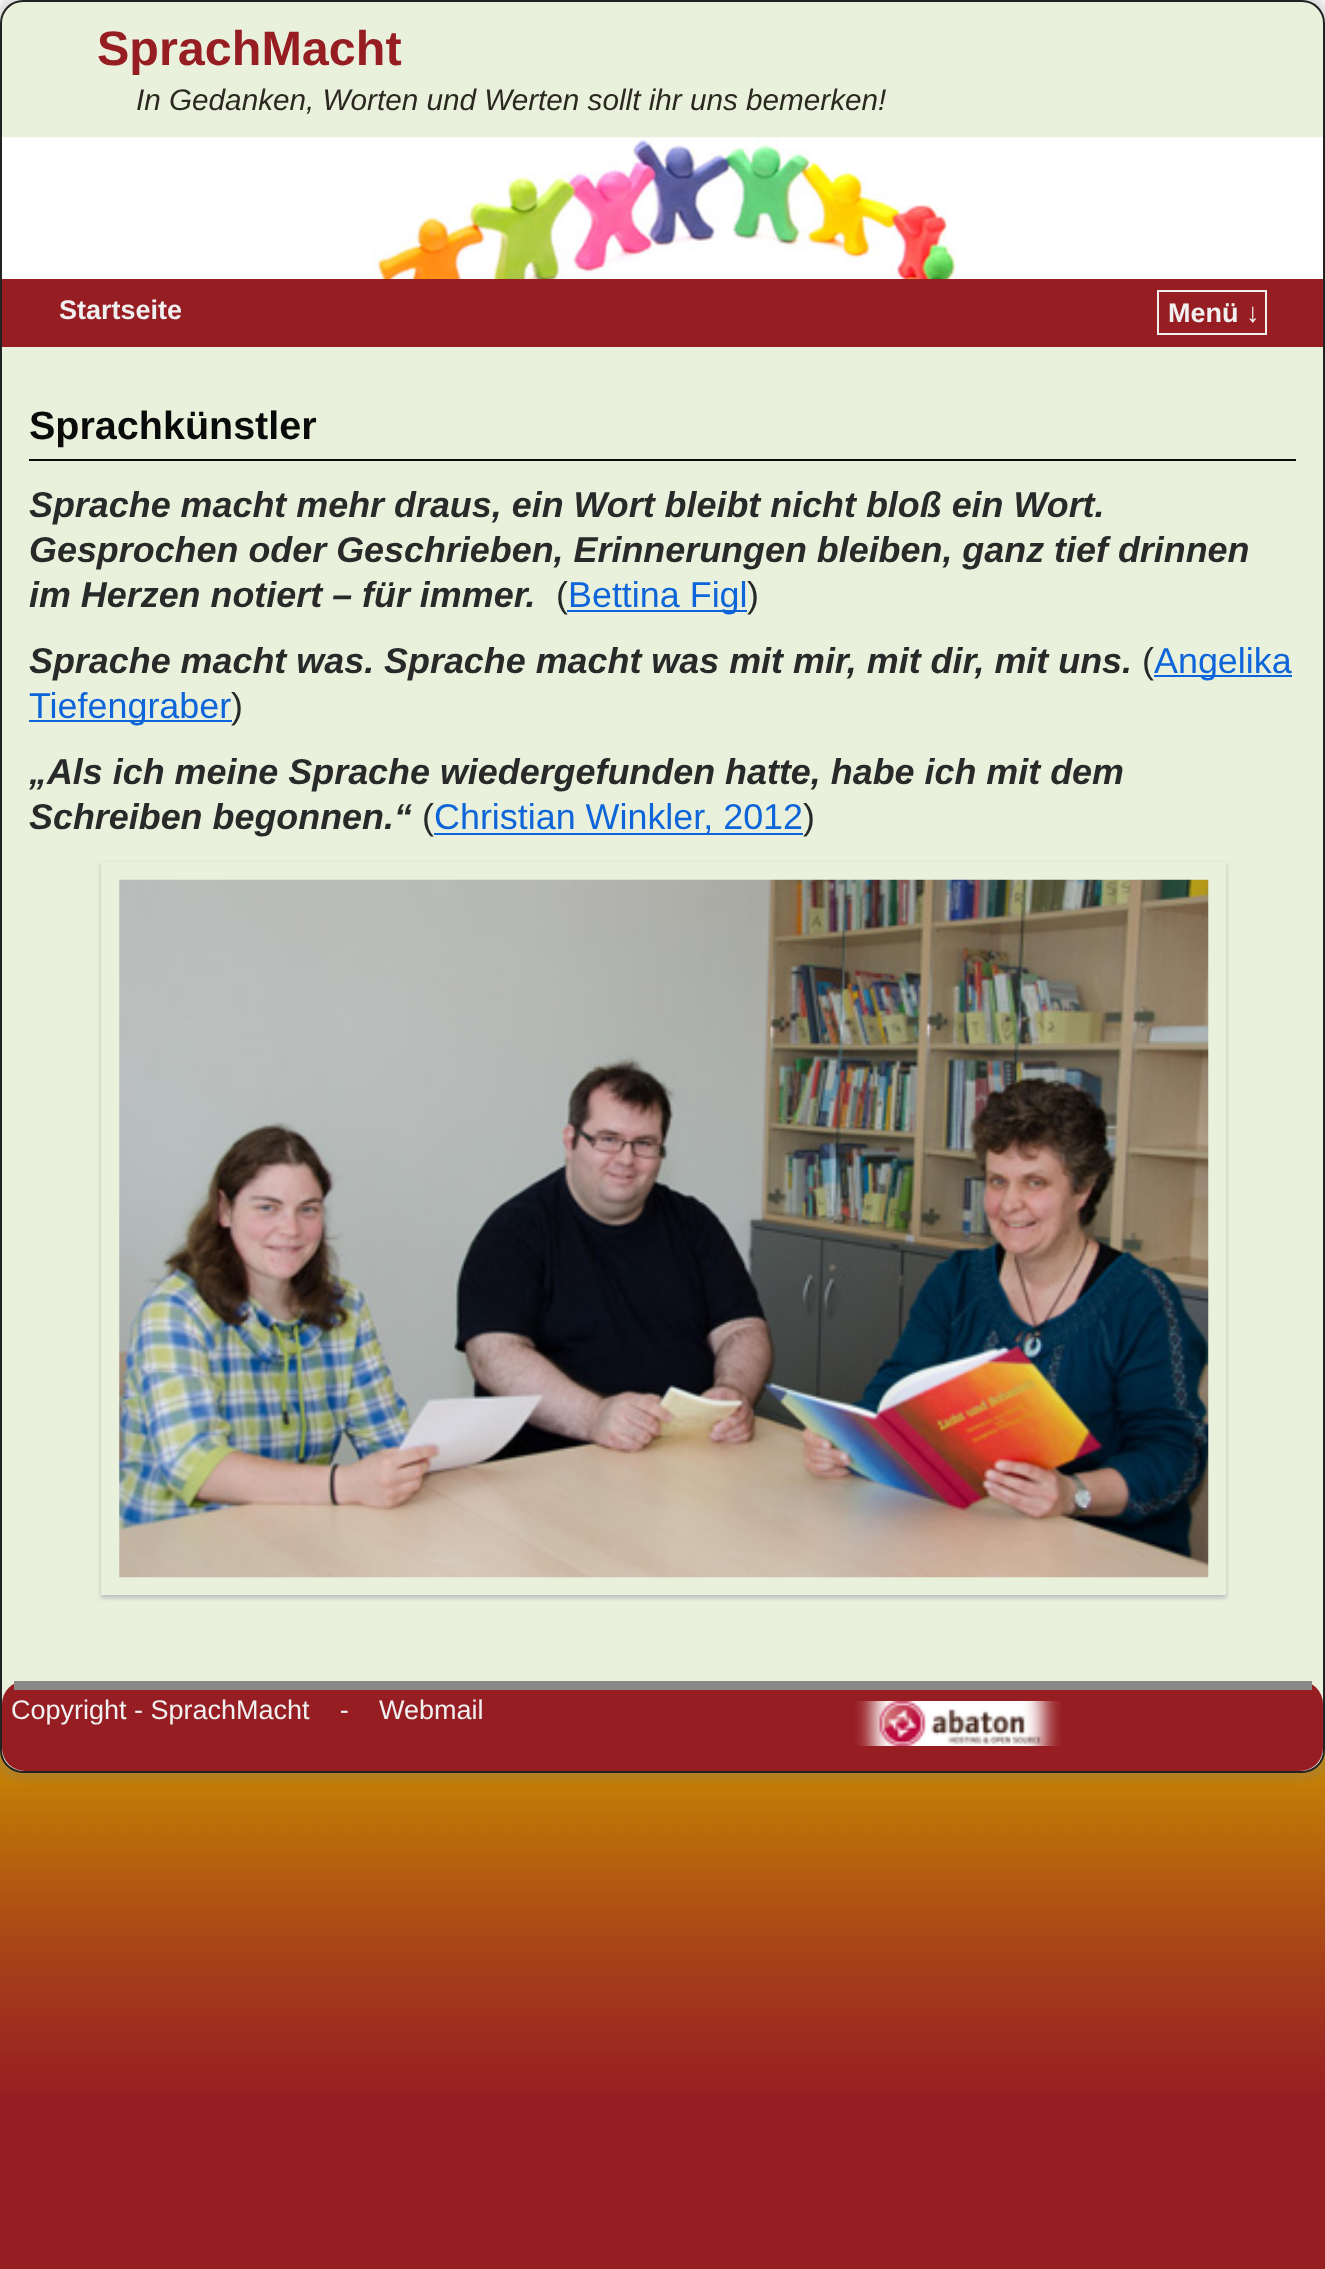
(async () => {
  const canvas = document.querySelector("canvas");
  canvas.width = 1325;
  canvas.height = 2269;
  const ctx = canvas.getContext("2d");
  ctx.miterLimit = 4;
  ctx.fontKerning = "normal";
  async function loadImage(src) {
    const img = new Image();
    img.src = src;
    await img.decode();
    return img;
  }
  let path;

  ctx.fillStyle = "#961d22";
  ctx.fillRect(0, 0, 1325, 2269);
  ctx.drawImage(await loadImage("img/1.png"), 0, 0, 1325, 2092);
  ctx.fillStyle = "rgba(127, 127, 127, 0.25)";
  ctx.filter = "blur(3.5px)";
  ctx.beginPath();
  ctx.roundRect(-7, -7, 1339, 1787, 29);
  ctx.fill();
  ctx.filter = "none";
  ctx.fillStyle = "#e9f1dc";
  ctx.beginPath();
  ctx.roundRect(1, 1, 1323, 1771, 22);
  ctx.fill();
  ctx.strokeStyle = "#222222";
  ctx.lineWidth = 2;
  ctx.stroke();
  ctx.drawImage(await loadImage("img/2.png"), 2, 137, 1321, 142);
  ctx.fillStyle = "#961d22";
  ctx.fillRect(2, 279, 1321, 68);
  ctx.strokeStyle = "#f0f0f0";
  ctx.strokeRect(1158, 291, 108, 43);
  for (const [x, y, w, h, color] of [
    [29, 459, 1267, 2, "#0a0a0a"],
    [29, 720, 203, 2, "#0d65d9"],
    [434, 833, 369, 2, "#0d65d9"],
  ]) {
    ctx.fillStyle = color;
    ctx.fillRect(x, y, w, h);
  }
  ctx.save();
  path = new Path2D("M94 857H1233V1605H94ZM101 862H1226V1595H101Z");
  ctx.clip(path, "evenodd");
  ctx.fillStyle = "#bbbbbb";
  ctx.filter = "blur(2px)";
  ctx.beginPath();
  ctx.rect(101, 864, 1125, 734);
  ctx.fill();
  ctx.filter = "none";
  ctx.restore();
  ctx.drawImage(await loadImage("img/3.png"), 119, 879, 1090, 699);
  ctx.fillStyle = "#961d22";
  ctx.beginPath();
  ctx.roundRect(2, 1681, 1321, 90, 23);
  ctx.fill();
  ctx.fillStyle = "#888888";
  ctx.fillRect(14, 1681, 1298, 9);
  ctx.drawImage(await loadImage("img/4.png"), 854, 1701, 207, 45);
  ctx.font = "bold 48.5px Liberation Sans";
  ctx.fillStyle = "#961d22";
  ctx.fillText("SprachMacht", 97, 65);
  ctx.font = "italic 29.7px Liberation Sans";
  ctx.fillStyle = "#2b2820";
  ctx.fillText("In Gedanken, Worten und Werten sollt ihr uns bemerken!", 136, 110);
  ctx.font = "bold 27px Liberation Sans";
  ctx.fillStyle = "#f0f0f0";
  ctx.fillText("Startseite", 59, 319);
  ctx.fillText("Menü ↓", 1168, 322);
  ctx.font = "bold 39.5px Liberation Sans";
  ctx.fillStyle = "#0a0a0a";
  ctx.fillText("Sprachkünstler", 29, 439);
  ctx.font = "italic bold 35.9px Liberation Sans";
  ctx.fillStyle = "#292929";
  for (const [text, x, y] of [
    ["Sprache macht mehr draus, ein Wort bleibt nicht bloß ein Wort.", 29, 517],
    ["Gesprochen oder Geschrieben, Erinnerungen bleiben, ganz tief drinnen", 29, 562],
    ["im Herzen notiert – für immer.", 29, 607],
  ]) {
    ctx.fillText(text, x, y);
  }
  ctx.font = "35.9px Liberation Sans";
  ctx.fillText("(", 556, 607);
  ctx.fillStyle = "#0d65d9";
  ctx.fillRect(567, 610, 180, 2);
  ctx.fillText("Bettina Figl", 568, 607);
  ctx.fillStyle = "#292929";
  ctx.fillText(")", 747, 607);
  ctx.font = "italic bold 35.9px Liberation Sans";
  ctx.fillText("Sprache macht was. Sprache macht was mit mir, mit dir, mit uns.", 29, 673);
  ctx.font = "35.9px Liberation Sans";
  ctx.fillText("(", 1142, 673);
  ctx.fillStyle = "#0d65d9";
  ctx.fillRect(1154, 675, 138, 2);
  ctx.fillText("Angelika", 1154, 673);
  ctx.fillText("Tiefengraber", 29, 718);
  ctx.fillStyle = "#292929";
  ctx.fillText(")", 231, 718);
  ctx.font = "italic bold 35.9px Liberation Sans";
  ctx.fillText("„Als ich meine Sprache wiedergefunden hatte, habe ich mit dem", 29, 784);
  ctx.fillText("Schreiben begonnen.“", 29, 829);
  ctx.font = "35.9px Liberation Sans";
  ctx.fillText("(", 422, 829);
  ctx.fillStyle = "#0d65d9";
  ctx.fillText("Christian Winkler, 2012", 434, 829);
  ctx.fillStyle = "#292929";
  ctx.fillText(")", 803, 829);
  ctx.font = "27px Liberation Sans";
  ctx.fillStyle = "#f0f0f0";
  ctx.fillText("Copyright - SprachMacht    -", 11, 1719);
  ctx.fillText("Webmail", 379, 1719);
})();
